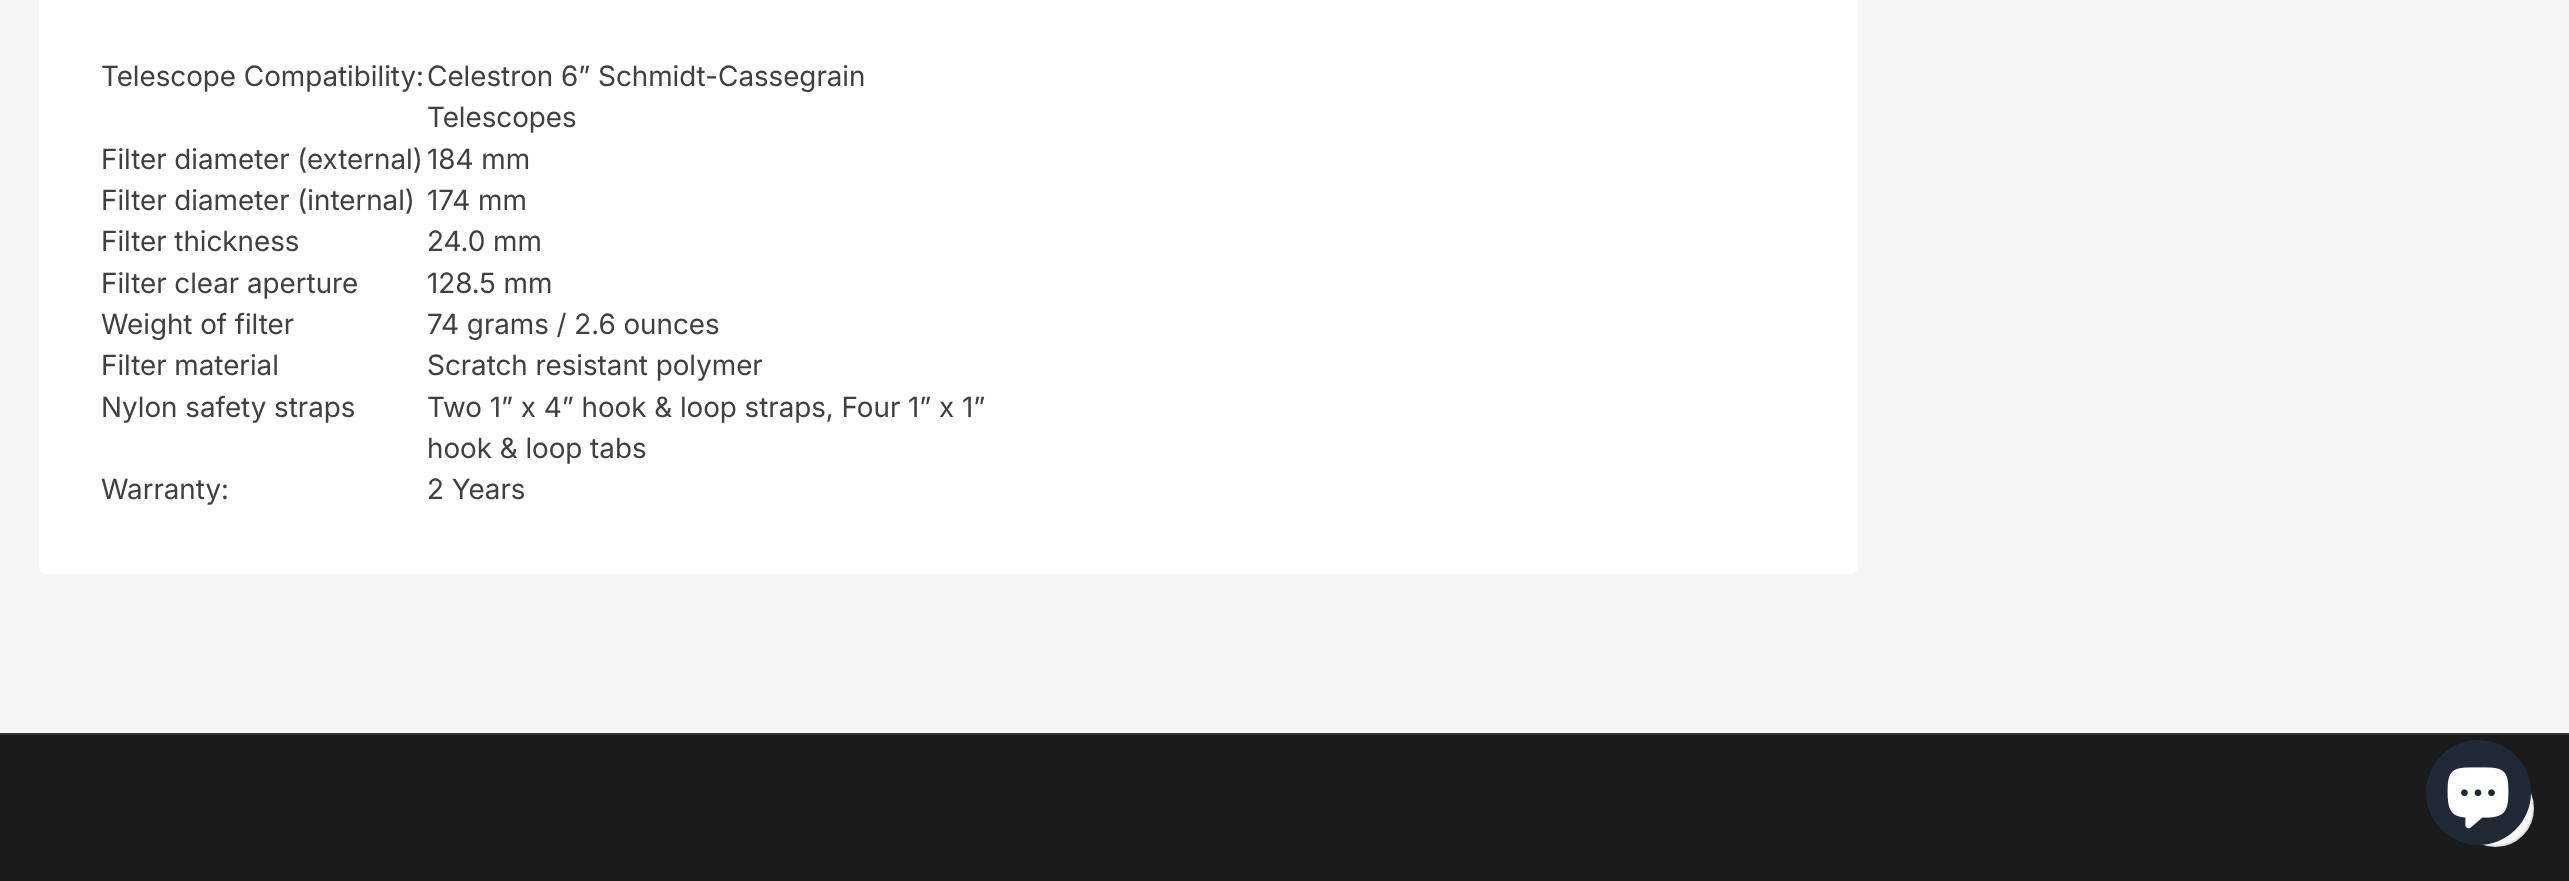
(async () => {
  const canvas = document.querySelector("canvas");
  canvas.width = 2569;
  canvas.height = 881;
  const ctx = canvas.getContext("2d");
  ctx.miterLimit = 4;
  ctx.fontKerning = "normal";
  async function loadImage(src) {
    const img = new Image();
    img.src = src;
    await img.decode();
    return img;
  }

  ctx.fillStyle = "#f6f6f6";
  ctx.fillRect(0, 0, 2569, 881);
  ctx.fillStyle = "#ffffff";
  ctx.beginPath();
  ctx.roundRect(38, -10, 1821, 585, 8);
  ctx.fill();
  ctx.strokeStyle = "#f6f6f6";
  ctx.lineWidth = 2;
  ctx.stroke();
  ctx.fillStyle = "#1b1b1b";
  ctx.fillRect(0, 735, 2569, 146);
  ctx.fillStyle = "#323232";
  ctx.fillRect(0, 733, 2569, 2);
  ctx.fillStyle = "#f6f6f6";
  ctx.beginPath();
  ctx.arc(2495.5, 808.5, 37.5, 0, Math.PI * 2);
  ctx.fill();
  ctx.strokeStyle = "#e1e1e1";
  ctx.stroke();
  ctx.fillStyle = "#202a36";
  ctx.beginPath();
  ctx.arc(2478.5, 792.5, 52.5, 0, Math.PI * 2);
  ctx.fill();
  ctx.drawImage(await loadImage("img/1.png"), 2447, 767, 62, 62);
  ctx.font = "28px Inter";
  ctx.fillStyle = "#404040";
  for (const [text, x, y] of [
    ["Telescope Compatibility:", 101, 86],
    ["Celestron 6” Schmidt-Cassegrain", 427, 86],
    ["Telescopes", 427, 127],
    ["Filter diameter (external)", 101, 169],
    ["184 mm", 427, 169],
    ["Filter diameter (internal)", 101, 210],
    ["174 mm", 427, 210],
    ["Filter thickness", 101, 251],
    ["24.0 mm", 427, 251],
    ["Filter clear aperture", 101, 293],
    ["128.5 mm", 427, 293],
    ["Weight of filter", 101, 334],
    ["74 grams / 2.6 ounces", 427, 334],
    ["Filter material", 101, 375],
    ["Scratch resistant polymer", 427, 375],
    ["Nylon safety straps", 101, 417],
    ["Two 1” x 4” hook & loop straps, Four 1” x 1”", 427, 417],
    ["hook & loop tabs", 427, 458],
    ["Warranty:", 101, 499],
    ["2 Years", 427, 499],
  ]) {
    ctx.fillText(text, x, y);
  }
})();
